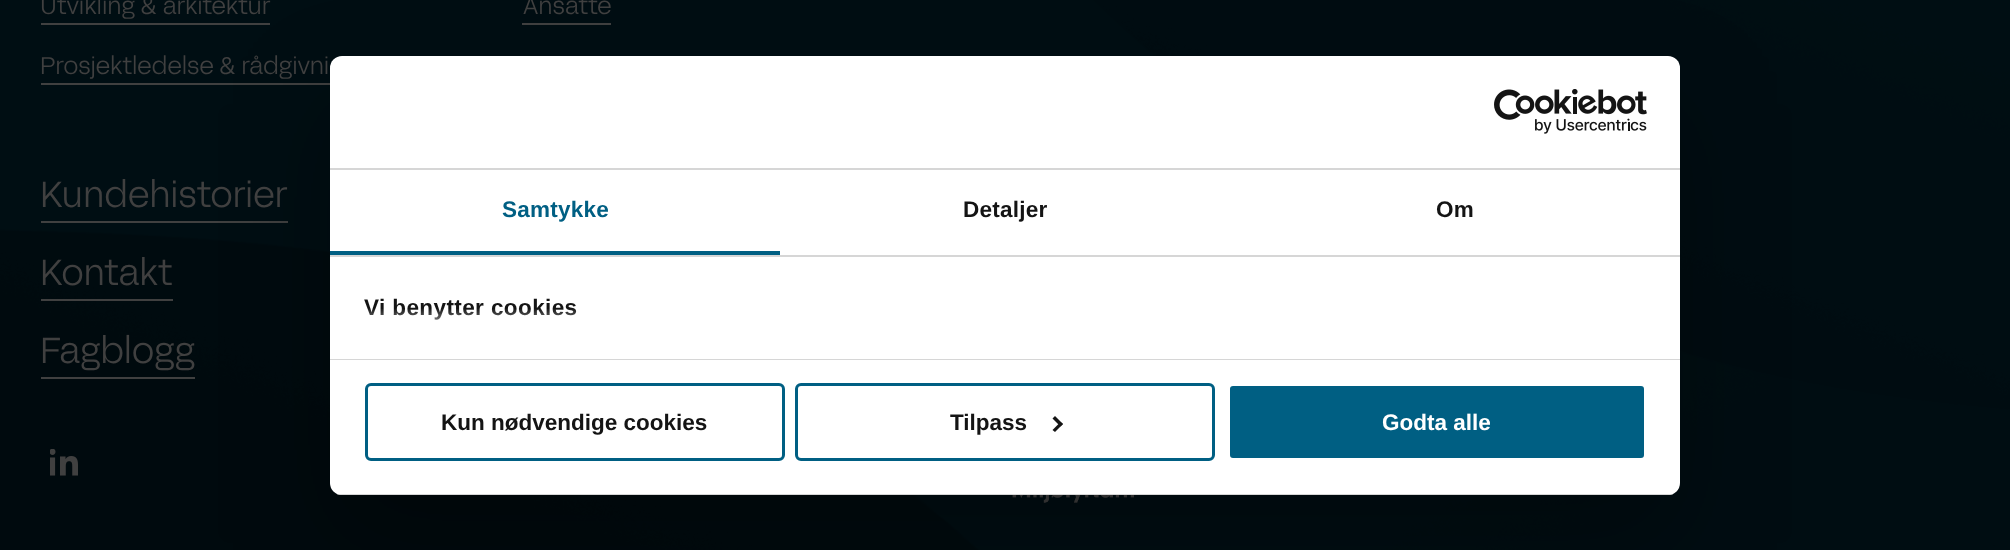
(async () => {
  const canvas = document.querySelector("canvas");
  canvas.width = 2010;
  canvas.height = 550;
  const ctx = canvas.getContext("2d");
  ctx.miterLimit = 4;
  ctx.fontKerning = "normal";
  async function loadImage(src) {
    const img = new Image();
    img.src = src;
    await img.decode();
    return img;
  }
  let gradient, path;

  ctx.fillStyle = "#ffffff";
  ctx.fillRect(0, 0, 2010, 550);
  ctx.drawImage(await loadImage("img/1.png"), 0, 0, 2010, 550);
  for (const [x, y, w, h, color] of [
    [41, 23, 229, 2, "#404040"],
    [41, 83, 289, 2, "#404040"],
    [522, 23, 89, 2, "#404040"],
    [41, 221, 247, 2, "#404040"],
    [41, 299, 132, 2, "#404040"],
    [41, 377, 154, 2, "#404040"],
  ]) {
    ctx.fillStyle = color;
    ctx.fillRect(x, y, w, h);
  }
  ctx.drawImage(await loadImage("img/2.png"), 50, 449, 28, 27);
  ctx.drawImage(await loadImage("img/3.png"), 1012, 495, 122, 8);
  ctx.fillStyle = "rgba(0, 0, 0, 0.3)";
  ctx.filter = "blur(51px)";
  ctx.beginPath();
  ctx.roundRect(330, 104, 1350, 439, 12);
  ctx.fill();
  ctx.filter = "none";
  ctx.fillStyle = "#ffffff";
  ctx.beginPath();
  ctx.roundRect(330, 56, 1350, 439, 12);
  ctx.fill();
  ctx.fillStyle = "#d6d6d6";
  ctx.fillRect(330, 168, 1350, 2);
  ctx.drawImage(await loadImage("img/4.png"), 1494, 89, 153, 45);
  for (const [x, y, w, h, color] of [
    [330, 255, 1350, 2, "#d6d6d6"],
    [330, 251, 450, 4, "#005f83"],
    [330, 359, 1350, 1, "#d6d6d6"],
  ]) {
    ctx.fillStyle = color;
    ctx.fillRect(x, y, w, h);
  }
  ctx.save();
  ctx.beginPath();
  ctx.roundRect(330, 56, 1350, 439, 12);
  ctx.clip();
  ctx.fillRect(330, 494, 1350, 1);
  ctx.restore();
  ctx.beginPath();
  ctx.roundRect(366.5, 384.5, 417, 75, 4.5);
  ctx.strokeStyle = "#005f83";
  ctx.lineWidth = 3;
  ctx.stroke();
  ctx.beginPath();
  ctx.roundRect(796.5, 384.5, 417, 75, 4.5);
  ctx.stroke();
  ctx.fillStyle = "#141414";
  path = new Path2D("M1055 416L1063 424L1060.5 426.5L1052.5 418.5Z");
  ctx.fill(path);
  path = new Path2D("M1060.5 422L1063 424L1055 432L1052.5 430Z");
  ctx.fill(path);
  ctx.fillStyle = "#005f83";
  ctx.beginPath();
  ctx.roundRect(1228.5, 384.5, 417, 75, 4.5);
  ctx.fill();
  ctx.strokeStyle = "#ffffff";
  ctx.stroke();
  ctx.font = "300 24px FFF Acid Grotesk";
  ctx.fillStyle = "#404040";
  for (const [text, x, y] of [
    ["Utvikling & arkitektur", 40, 14],
    ["Prosjektledelse & rådgivni", 40, 74],
    ["Ansatte", 523, 14],
  ]) {
    ctx.fillText(text, x, y);
  }
  ctx.font = "300 36px FFF Acid Grotesk";
  for (const [text, x, y] of [
    ["Kundehistorier", 40, 207],
    ["Kontakt", 40, 285],
    ["Fagblogg", 40, 363],
  ]) {
    ctx.fillText(text, x, y);
  }
  ctx.letterSpacing = "0.25px";
  ctx.font = "bold 22.5px Liberation Sans";
  ctx.fillStyle = "#005f83";
  ctx.fillText("Samtykke", 502, 217);
  ctx.fillStyle = "#141414";
  ctx.fillText("Detaljer", 963, 217);
  ctx.fillText("Om", 1436, 217);
  ctx.letterSpacing = "0.4px";
  ctx.fillText("Vi benytter cookies", 364, 315);
  gradient = ctx.createLinearGradient(990, 359, 990, 308);
  gradient.addColorStop(0, "#ffffff");
  gradient.addColorStop(0.5, "rgba(255, 255, 255, 0.8)");
  gradient.addColorStop(1, "rgba(255, 255, 255, 0)");
  ctx.fillStyle = gradient;
  ctx.fillRect(367, 309, 209, 11);
  ctx.letterSpacing = "0px";
  ctx.fillStyle = "#141414";
  ctx.fillText("Kun nødvendige cookies", 441, 430);
  ctx.fillText("Tilpass", 950, 430);
  ctx.fillStyle = "#ffffff";
  ctx.fillText("Godta alle", 1382, 430);
})();
